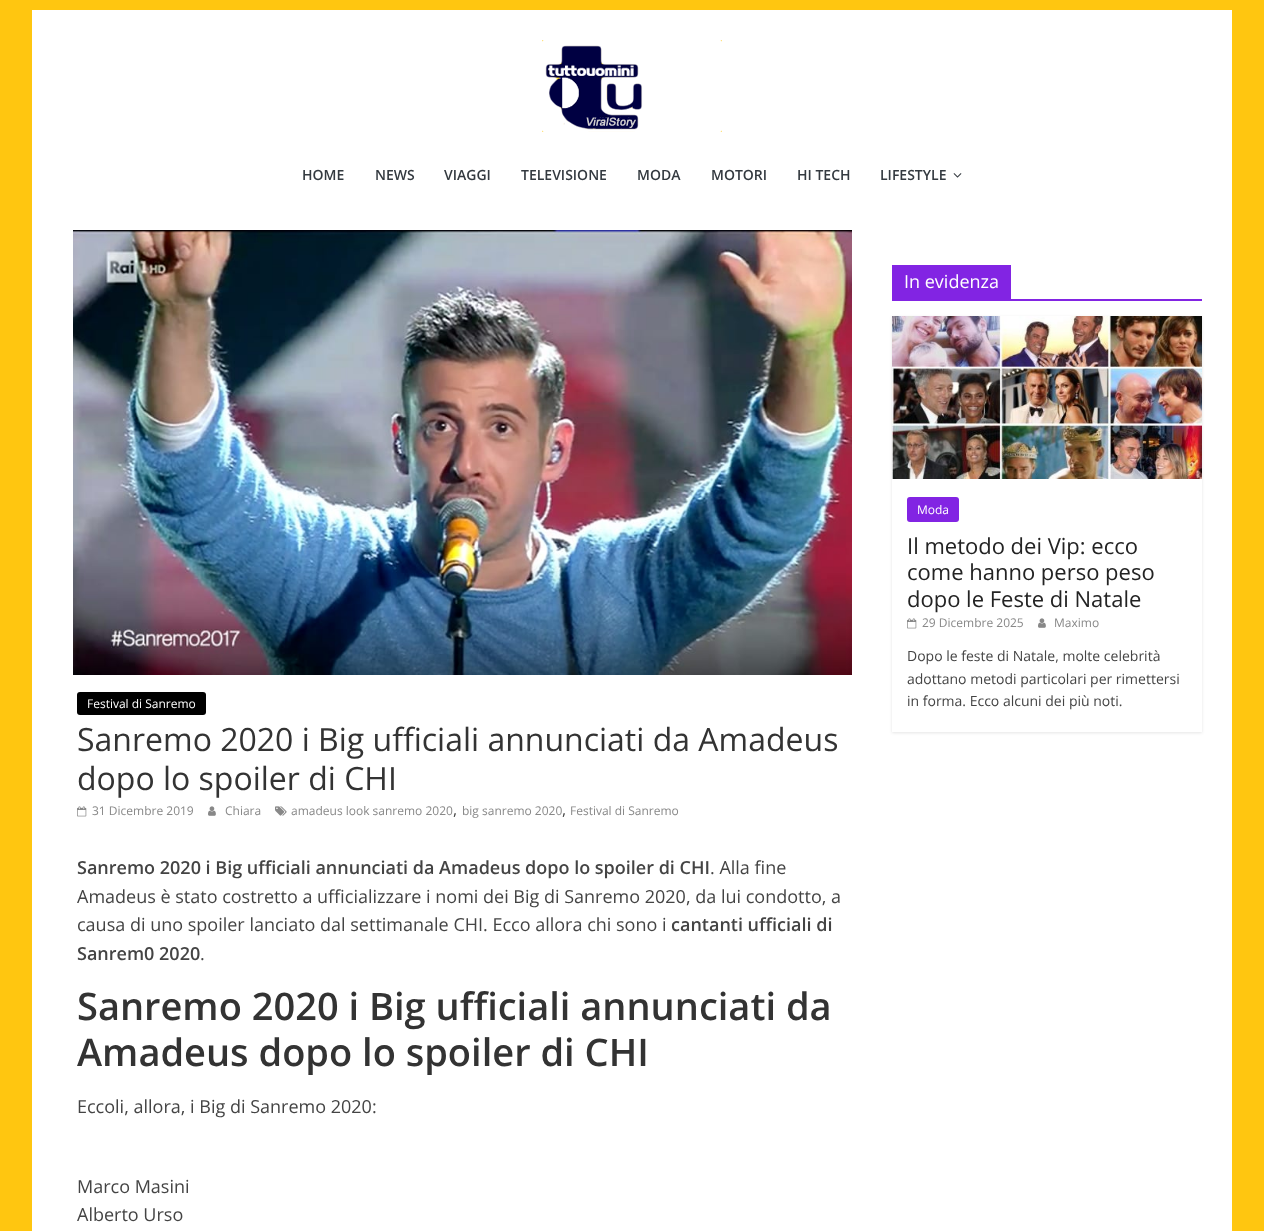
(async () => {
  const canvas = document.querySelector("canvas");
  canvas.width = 1264;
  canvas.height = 1231;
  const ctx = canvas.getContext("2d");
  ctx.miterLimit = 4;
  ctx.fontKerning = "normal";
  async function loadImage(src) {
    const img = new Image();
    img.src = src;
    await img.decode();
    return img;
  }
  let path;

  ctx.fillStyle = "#ffc610";
  ctx.fillRect(0, 0, 1264, 1231);
  ctx.fillStyle = "#ffffff";
  ctx.fillRect(32, 10, 1200, 1221);
  ctx.drawImage(await loadImage("img/1.png"), 542, 40, 180, 92);
  ctx.drawImage(await loadImage("img/2.png"), 953, 173, 9, 5);
  ctx.fillStyle = "#8224e3";
  ctx.fillRect(892, 299, 310, 2);
  ctx.fillRect(892, 265, 119, 34);
  ctx.save();
  path = new Path2D("M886 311H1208V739H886ZM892 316H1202V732H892Z");
  ctx.clip(path, "evenodd");
  ctx.fillStyle = "rgba(0, 0, 0, 0.1)";
  ctx.filter = "blur(1.5px)";
  ctx.beginPath();
  ctx.rect(892, 317, 310, 416);
  ctx.fill();
  ctx.filter = "none";
  ctx.restore();
  ctx.drawImage(await loadImage("img/3.png"), 892, 316, 310, 163);
  ctx.beginPath();
  ctx.roundRect(907, 497, 52, 25, 3);
  ctx.fill();
  ctx.drawImage(await loadImage("img/4.png"), 907, 618, 10, 11);
  ctx.drawImage(await loadImage("img/5.png"), 1038, 618, 8, 10);
  ctx.drawImage(await loadImage("img/6.png"), 73, 230, 779, 445);
  ctx.fillStyle = "#000000";
  ctx.beginPath();
  ctx.roundRect(77, 692, 129, 23, 3);
  ctx.fill();
  ctx.drawImage(await loadImage("img/4.png"), 77, 806, 10, 11);
  ctx.drawImage(await loadImage("img/5.png"), 208, 806, 8, 10);
  ctx.drawImage(await loadImage("img/7.png"), 275, 806, 12, 10);
  ctx.font = "600 14px Open Sans";
  ctx.fillStyle = "#343a40";
  for (const [text, x, y] of [
    ["HOME", 302, 180],
    ["NEWS", 375, 180],
    ["VIAGGI", 444, 180],
    ["TELEVISIONE", 521, 180],
    ["MODA", 637, 180],
    ["MOTORI", 711, 180],
    ["HI TECH", 797, 180],
    ["LIFESTYLE", 880, 180],
  ]) {
    ctx.fillText(text, x, y);
  }
  ctx.font = "18px Open Sans";
  ctx.fillStyle = "#ffffff";
  ctx.fillText("In evidenza", 904, 288);
  ctx.font = "12px Open Sans";
  ctx.fillText("Moda", 917, 514);
  ctx.font = "22px Open Sans";
  ctx.fillStyle = "#232323";
  for (const [text, x, y] of [
    ["Il metodo dei Vip: ecco", 907, 554],
    ["come hanno perso peso", 907, 580],
    ["dopo le Feste di Natale", 907, 607],
  ]) {
    ctx.fillText(text, x, y);
  }
  ctx.font = "12px Open Sans";
  ctx.fillStyle = "#888888";
  ctx.fillText("29 Dicembre 2025", 922, 627);
  ctx.fillText("Maximo", 1054, 627);
  ctx.font = "14px Open Sans";
  ctx.fillStyle = "#444444";
  for (const [text, x, y] of [
    ["Dopo le feste di Natale, molte celebrità", 907, 661],
    ["adottano metodi particolari per rimettersi", 907, 684],
    ["in forma. Ecco alcuni dei più noti.", 907, 706],
  ]) {
    ctx.fillText(text, x, y);
  }
  ctx.font = "12px Open Sans";
  ctx.fillStyle = "#ffffff";
  ctx.fillText("Festival di Sanremo", 87, 708);
  ctx.font = "32px Open Sans";
  ctx.fillStyle = "#333333";
  ctx.fillText("Sanremo 2020 i Big ufficiali annunciati da Amadeus", 77, 751);
  ctx.fillText("dopo lo spoiler di CHI", 77, 790);
  ctx.font = "12px Open Sans";
  ctx.fillStyle = "#888888";
  for (const [text, x, y] of [
    ["31 Dicembre 2019", 92, 815],
    ["Chiara", 225, 815],
    ["amadeus look sanremo 2020", 291, 815],
  ]) {
    ctx.fillText(text, x, y);
  }
  ctx.font = "16px Open Sans";
  ctx.fillStyle = "#444444";
  ctx.fillText(",", 453, 815);
  ctx.font = "12px Open Sans";
  ctx.fillStyle = "#888888";
  ctx.fillText("big sanremo 2020", 462, 815);
  ctx.font = "16px Open Sans";
  ctx.fillStyle = "#444444";
  ctx.fillText(",", 562, 815);
  ctx.font = "12px Open Sans";
  ctx.fillStyle = "#888888";
  ctx.fillText("Festival di Sanremo", 570, 815);
  ctx.font = "600 18px Open Sans";
  ctx.fillStyle = "#444444";
  ctx.fillText("Sanremo 2020 i Big ufficiali annunciati da Amadeus dopo lo spoiler di CHI", 77, 874);
  ctx.font = "18px Open Sans";
  for (const [text, x, y] of [
    [". Alla fine", 710, 874],
    ["Amadeus è stato costretto a ufficializzare i nomi dei Big di Sanremo 2020, da lui condotto, a", 77, 903],
    ["causa di uno spoiler lanciato dal settimanale CHI. Ecco allora chi sono i", 77, 931],
  ]) {
    ctx.fillText(text, x, y);
  }
  ctx.font = "600 18px Open Sans";
  ctx.fillText("cantanti ufficiali di", 671, 931);
  ctx.fillText("Sanrem0 2020", 77, 960);
  ctx.font = "18px Open Sans";
  ctx.fillText(".", 200, 960);
  ctx.font = "600 38px Open Sans";
  ctx.fillStyle = "#333333";
  ctx.fillText("Sanremo 2020 i Big ufficiali annunciati da", 77, 1020);
  ctx.fillText("Amadeus dopo lo spoiler di CHI", 77, 1066);
  ctx.font = "18px Open Sans";
  ctx.fillStyle = "#444444";
  for (const [text, x, y] of [
    ["Eccoli, allora, i Big di Sanremo 2020:", 77, 1113],
    ["Marco Masini", 77, 1193],
    ["Alberto Urso", 77, 1221],
  ]) {
    ctx.fillText(text, x, y);
  }
})();
